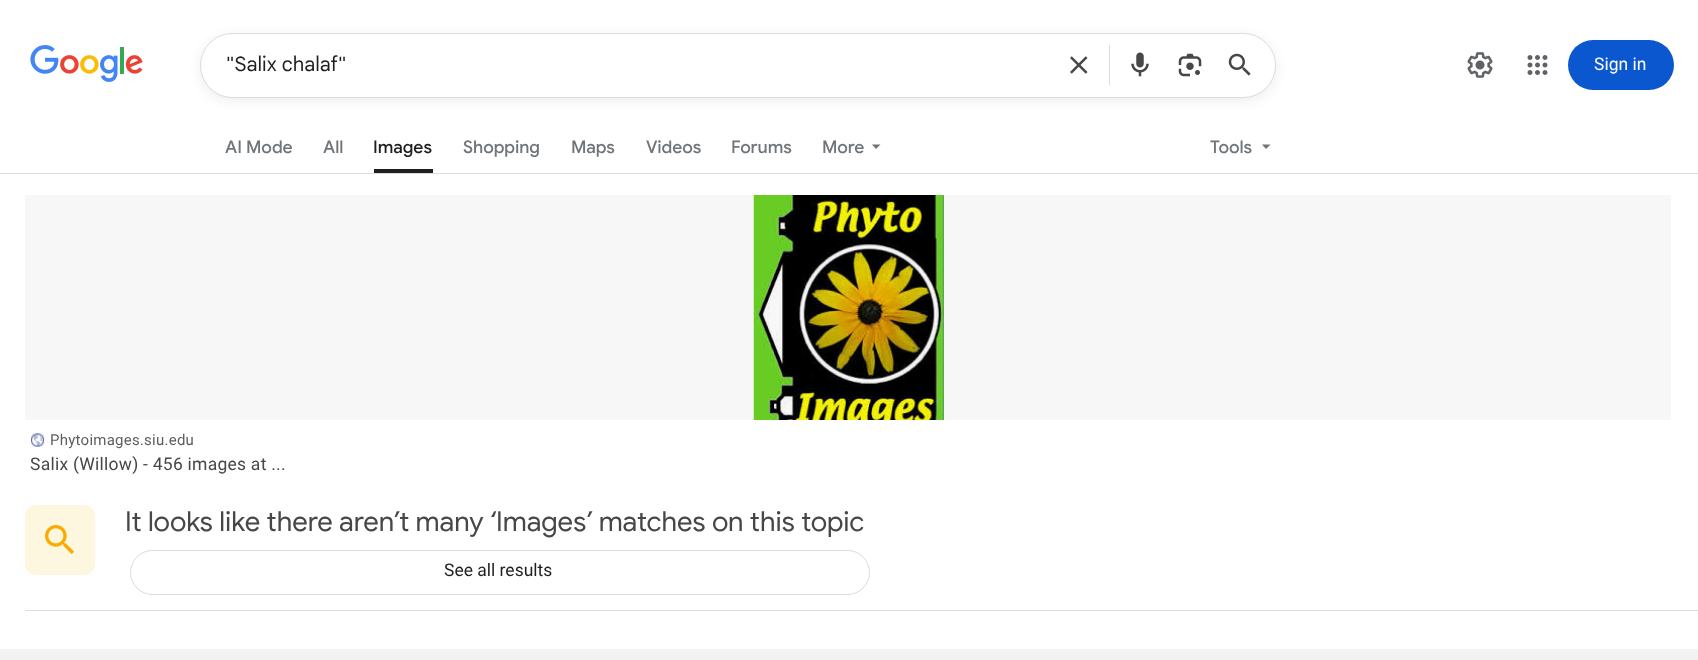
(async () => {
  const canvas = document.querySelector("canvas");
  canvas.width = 1698;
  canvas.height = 660;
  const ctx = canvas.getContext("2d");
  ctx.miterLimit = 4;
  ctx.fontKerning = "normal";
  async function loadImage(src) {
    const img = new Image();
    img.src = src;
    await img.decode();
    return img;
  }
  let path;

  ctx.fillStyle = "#ffffff";
  ctx.fillRect(0, 0, 1698, 660);
  ctx.drawImage(await loadImage("img/1.png"), 30, 45, 113, 37);
  ctx.fillStyle = "rgba(31, 31, 31, 0.08)";
  ctx.filter = "blur(6px)";
  ctx.beginPath();
  ctx.roundRect(200, 36, 1076, 65, 32.5);
  ctx.fill();
  ctx.filter = "none";
  ctx.fillStyle = "#ffffff";
  ctx.beginPath();
  ctx.roundRect(200.5, 33.5, 1075, 64, 32);
  ctx.fill();
  ctx.strokeStyle = "#dadce0";
  ctx.stroke();
  ctx.drawImage(await loadImage("img/2.png"), 1070, 56, 18, 18);
  ctx.fillStyle = "#dadce0";
  ctx.fillRect(1109, 45, 1, 40);
  ctx.drawImage(await loadImage("img/3.png"), 1131, 52, 18, 25);
  ctx.drawImage(await loadImage("img/4.png"), 1178, 53, 24, 24);
  ctx.drawImage(await loadImage("img/5.png"), 1228, 53, 23, 23);
  ctx.drawImage(await loadImage("img/6.png"), 1467, 52, 26, 26);
  ctx.drawImage(await loadImage("img/7.png"), 1527, 55, 21, 20);
  ctx.fillStyle = "#0b57d0";
  ctx.beginPath();
  ctx.roundRect(1568, 40, 106, 50, 25);
  ctx.fill();
  ctx.fillStyle = "#1f1f1f";
  ctx.fillRect(374, 169, 59, 4);
  ctx.fillStyle = "#70757a";
  path = new Path2D("M872 144.5L876 149L880.5 144.5Z");
  ctx.fill(path);
  path = new Path2D("M1262 144.5L1266 149L1270.5 144.5Z");
  ctx.fill(path);
  ctx.fillStyle = "#dadce0";
  ctx.fillRect(0, 173, 1698, 1);
  ctx.drawImage(await loadImage("img/8.png"), 753, 195, 191, 225);
  ctx.fillStyle = "rgba(0, 0, 0, 0.03)";
  ctx.fillRect(25, 195, 1646, 225);
  ctx.drawImage(await loadImage("img/9.png"), 31, 433, 14, 14);
  ctx.fillStyle = "#fef7e0";
  ctx.beginPath();
  ctx.roundRect(25, 505, 70, 70, 10);
  ctx.fill();
  ctx.drawImage(await loadImage("img/10.png"), 45, 525, 30, 30);
  ctx.beginPath();
  ctx.roundRect(130.5, 550.5, 739, 44, 22);
  ctx.stroke();
  ctx.fillStyle = "#dadce0";
  ctx.fillRect(25, 610, 1673, 1);
  ctx.fillStyle = "#f2f2f2";
  ctx.fillRect(0, 649, 1698, 11);
  ctx.font = "20px 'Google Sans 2'";
  ctx.fillStyle = "#1f1f1f";
  ctx.fillText("\"Salix chalaf\"", 226, 71);
  ctx.font = "17.5px Roboto";
  ctx.fillStyle = "#ffffff";
  ctx.fillText("Sign in", 1594, 70);
  ctx.font = "500 17.5px Google Sans";
  ctx.fillStyle = "#70757a";
  ctx.fillText("AI Mode", 225, 153);
  ctx.fillText("All", 323, 153);
  ctx.fillStyle = "#1f1f1f";
  ctx.fillText("Images", 373, 153);
  ctx.fillStyle = "#70757a";
  for (const [text, x, y] of [
    ["Shopping", 463, 153],
    ["Maps", 571, 153],
    ["Videos", 646, 153],
    ["Forums", 731, 153],
    ["More", 822, 153],
    ["Tools", 1210, 153],
  ]) {
    ctx.fillText(text, x, y);
  }
  ctx.letterSpacing = "0.25px";
  ctx.font = "15px Roboto";
  ctx.fillStyle = "#5e5e5e";
  ctx.fillText("Phytoimages.siu.edu", 50, 445);
  ctx.font = "17.5px Roboto";
  ctx.fillStyle = "#474747";
  ctx.fillText("Salix (Willow) - 456 images at ...", 30, 470);
  ctx.letterSpacing = "0px";
  ctx.font = "27.5px Google Sans";
  ctx.fillText("It looks like there aren’t many ‘Images’ matches on this topic", 125, 531);
  ctx.font = "17.5px Roboto";
  ctx.fillStyle = "#1f1f1f";
  ctx.fillText("See all results", 444, 576);
})();
